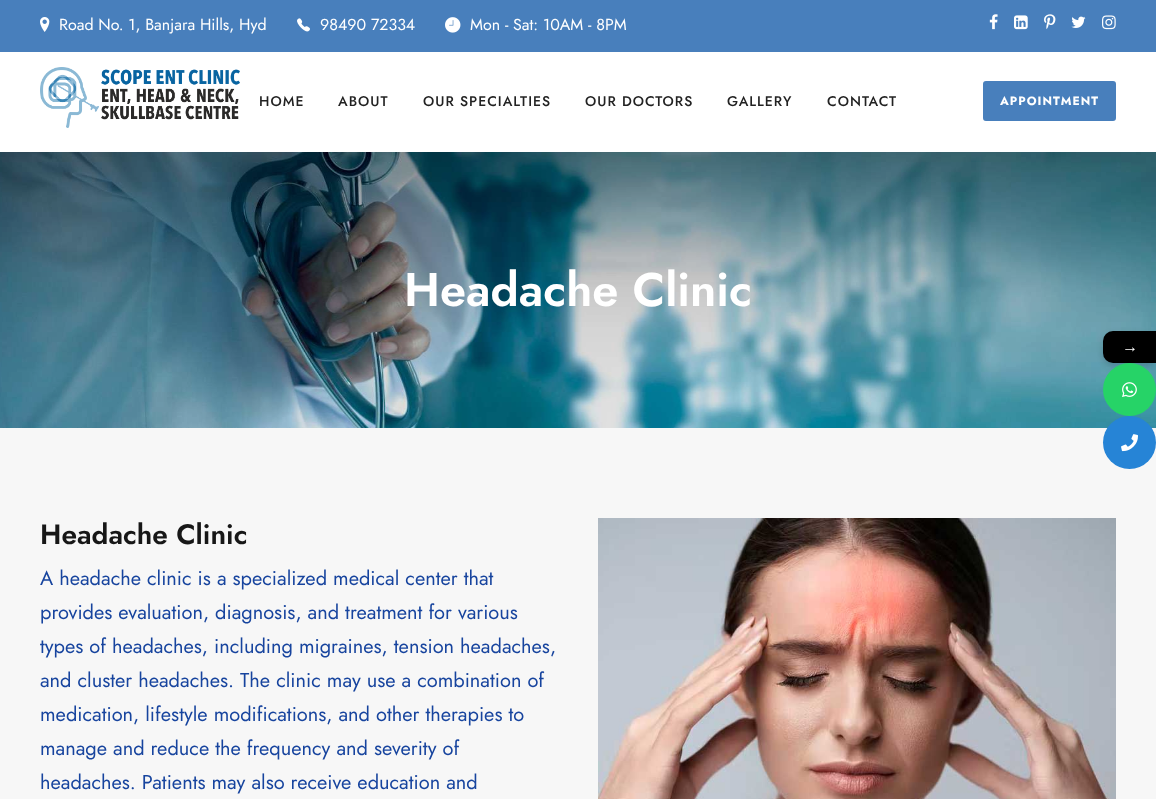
(async () => {
  const canvas = document.querySelector("canvas");
  canvas.width = 1156;
  canvas.height = 799;
  const ctx = canvas.getContext("2d");
  ctx.miterLimit = 4;
  ctx.fontKerning = "normal";
  async function loadImage(src) {
    const img = new Image();
    img.src = src;
    await img.decode();
    return img;
  }

  ctx.fillStyle = "#ffffff";
  ctx.fillRect(0, 0, 1156, 799);
  ctx.fillStyle = "#487fbc";
  ctx.fillRect(0, 0, 1156, 52);
  ctx.drawImage(await loadImage("img/1.png"), 40, 17, 10, 15);
  ctx.drawImage(await loadImage("img/2.png"), 297, 18, 13, 14);
  ctx.drawImage(await loadImage("img/3.png"), 445, 17, 16, 16);
  ctx.drawImage(await loadImage("img/4.png"), 989, 14, 9, 16);
  ctx.drawImage(await loadImage("img/5.png"), 1014, 15, 14, 15);
  ctx.drawImage(await loadImage("img/6.png"), 1044, 14, 12, 16);
  ctx.drawImage(await loadImage("img/7.png"), 1071, 16, 15, 12);
  ctx.drawImage(await loadImage("img/8.png"), 1102, 15, 14, 15);
  ctx.drawImage(await loadImage("img/9.png"), 40, 67, 200, 61);
  ctx.beginPath();
  ctx.roundRect(984, 82, 131, 38, 2);
  ctx.fill();
  ctx.strokeStyle = "#487fbc";
  ctx.lineWidth = 2;
  ctx.stroke();
  ctx.drawImage(await loadImage("img/10.png"), 0, 152, 1156, 276);
  ctx.fillStyle = "#f7f7f7";
  ctx.fillRect(0, 428, 1156, 371);
  ctx.drawImage(await loadImage("img/11.png"), 598, 518, 518, 281);
  ctx.fillStyle = "rgba(0, 0, 0, 0.16)";
  ctx.filter = "blur(3px)";
  ctx.beginPath();
  ctx.roundRect(1103, 334, 53, 32, 10);
  ctx.fill();
  ctx.filter = "none";
  ctx.fillStyle = "#000000";
  ctx.beginPath();
  ctx.roundRect(1103, 331, 53, 32, [10, 0, 0, 10]);
  ctx.fill();
  ctx.fillStyle = "#26d367";
  ctx.beginPath();
  ctx.arc(1129.5, 389.5, 26.5, 0, Math.PI * 2);
  ctx.fill();
  ctx.drawImage(await loadImage("img/12.png"), 1122, 382, 15, 15);
  ctx.fillStyle = "#2684d6";
  ctx.beginPath();
  ctx.arc(1129.5, 442.5, 26.5, 0, Math.PI * 2);
  ctx.fill();
  ctx.drawImage(await loadImage("img/13.png"), 1121, 434, 17, 18);
  ctx.font = "16px Jost";
  ctx.fillStyle = "#ffffff";
  for (const [text, x, y] of [
    ["Road No. 1, Banjara Hills, Hyd", 59, 30],
    ["98490 72334", 320, 30],
    ["Mon - Sat: 10AM - 8PM", 470, 30],
  ]) {
    ctx.fillText(text, x, y);
  }
  ctx.letterSpacing = "1px";
  ctx.font = "500 14px Jost";
  ctx.fillStyle = "#222222";
  for (const [text, x, y] of [
    ["HOME", 259, 106],
    ["ABOUT", 338, 106],
    ["OUR SPECIALTIES", 423, 106],
    ["OUR DOCTORS", 585, 106],
    ["GALLERY", 727, 106],
    ["CONTACT", 827, 106],
  ]) {
    ctx.fillText(text, x, y);
  }
  ctx.font = "bold 12px Jost";
  ctx.fillStyle = "#ffffff";
  ctx.fillText("APPOINTMENT", 1000, 105);
  ctx.letterSpacing = "0px";
  ctx.font = "600 47px Jost";
  ctx.fillText("Headache Clinic", 404, 306);
  ctx.font = "600 28px Jost";
  ctx.fillStyle = "#171717";
  ctx.fillText("Headache Clinic", 40, 544);
  ctx.font = "20px Jost";
  ctx.fillStyle = "#17449e";
  for (const [text, x, y] of [
    ["A headache clinic is a specialized medical center that", 40, 585],
    ["provides evaluation, diagnosis, and treatment for various", 40, 619],
    ["types of headaches, including migraines, tension headaches,", 40, 653],
    ["and cluster headaches. The clinic may use a combination of", 40, 687],
    ["medication, lifestyle modifications, and other therapies to", 40, 721],
    ["manage and reduce the frequency and severity of", 40, 755],
    ["headaches. Patients may also receive education and", 40, 789],
  ]) {
    ctx.fillText(text, x, y);
  }
  ctx.font = "16px Liberation Serif";
  ctx.fillStyle = "#ffffff";
  ctx.fillText("→", 1122, 352);
})();
